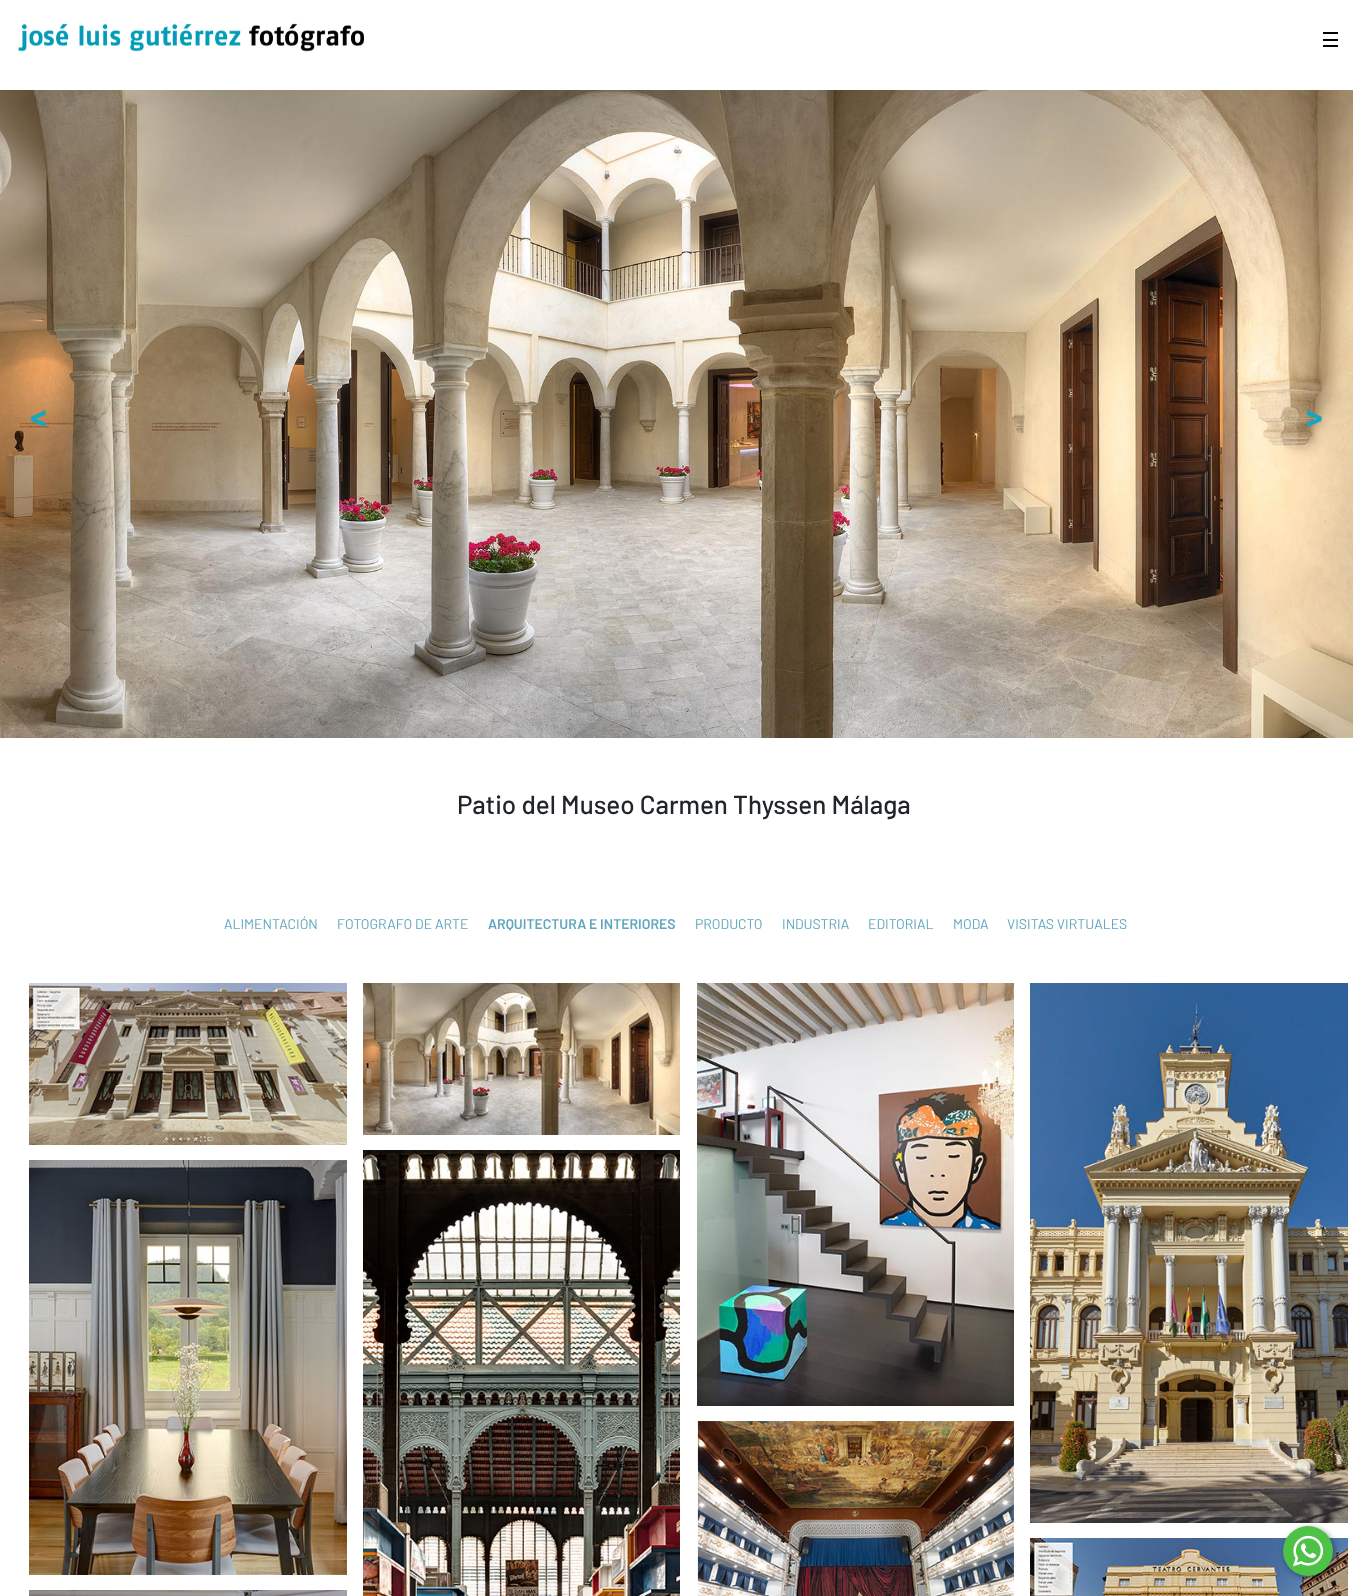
(async () => {
  const canvas = document.querySelector("canvas");
  canvas.width = 1353;
  canvas.height = 1596;
  const ctx = canvas.getContext("2d");
  ctx.miterLimit = 4;
  ctx.fontKerning = "normal";
  async function loadImage(src) {
    const img = new Image();
    img.src = src;
    await img.decode();
    return img;
  }

  ctx.fillStyle = "#ffffff";
  ctx.fillRect(0, 0, 1353, 1596);
  ctx.drawImage(await loadImage("img/1.png"), 18, 23, 346, 29);
  for (const [x, y, w, h, color] of [
    [1323, 32, 15, 2, "#020304"],
    [1323, 39, 15, 2, "#020304"],
    [1323, 45, 15, 2, "#020304"],
  ]) {
    ctx.fillStyle = color;
    ctx.fillRect(x, y, w, h);
  }
  ctx.drawImage(await loadImage("img/2.png"), 0, 90, 1353, 648);
  ctx.drawImage(await loadImage("img/3.png"), 29, 983, 318, 162);
  ctx.drawImage(await loadImage("img/4.png"), 363, 983, 317, 152);
  ctx.drawImage(await loadImage("img/5.png"), 697, 983, 317, 423);
  ctx.drawImage(await loadImage("img/6.png"), 1030, 983, 318, 540);
  ctx.drawImage(await loadImage("img/7.png"), 29, 1160, 318, 415);
  ctx.drawImage(await loadImage("img/8.png"), 363, 1150, 317, 446);
  ctx.drawImage(await loadImage("img/9.png"), 697, 1421, 317, 175);
  ctx.drawImage(await loadImage("img/10.png"), 1030, 1538, 318, 58);
  ctx.drawImage(await loadImage("img/11.png"), 29, 1590, 318, 6);
  ctx.fillStyle = "rgba(0, 0, 0, 0.4)";
  ctx.filter = "blur(3px)";
  ctx.beginPath();
  ctx.roundRect(1285, 1528, 50, 50, 25);
  ctx.fill();
  ctx.filter = "none";
  ctx.fillStyle = "#4dc247";
  ctx.beginPath();
  ctx.arc(1308, 1551, 25, 0, Math.PI * 2);
  ctx.fill();
  ctx.drawImage(await loadImage("img/12.png"), 1293, 1535, 31, 32);
  ctx.font = "bold 34px Barlow";
  ctx.fillStyle = "#18a5be";
  ctx.fillText("<", 30, 428);
  ctx.fillText(">", 1306, 428);
  ctx.font = "500 26px Barlow";
  ctx.fillStyle = "#212529";
  ctx.fillText("Patio del Museo Carmen Thyssen Málaga", 457, 814);
  ctx.font = "14px Barlow";
  ctx.fillStyle = "#61a6be";
  ctx.fillText("ALIMENTACIÓN", 224, 929);
  ctx.fillText("FOTOGRAFO DE ARTE", 337, 929);
  ctx.font = "600 14px Barlow";
  ctx.fillText("ARQUITECTURA E INTERIORES", 488, 929);
  ctx.font = "14px Barlow";
  for (const [text, x, y] of [
    ["PRODUCTO", 695, 929],
    ["INDUSTRIA", 782, 929],
    ["EDITORIAL", 868, 929],
    ["MODA", 953, 929],
    ["VISITAS VIRTUALES", 1007, 929],
  ]) {
    ctx.fillText(text, x, y);
  }
})();
